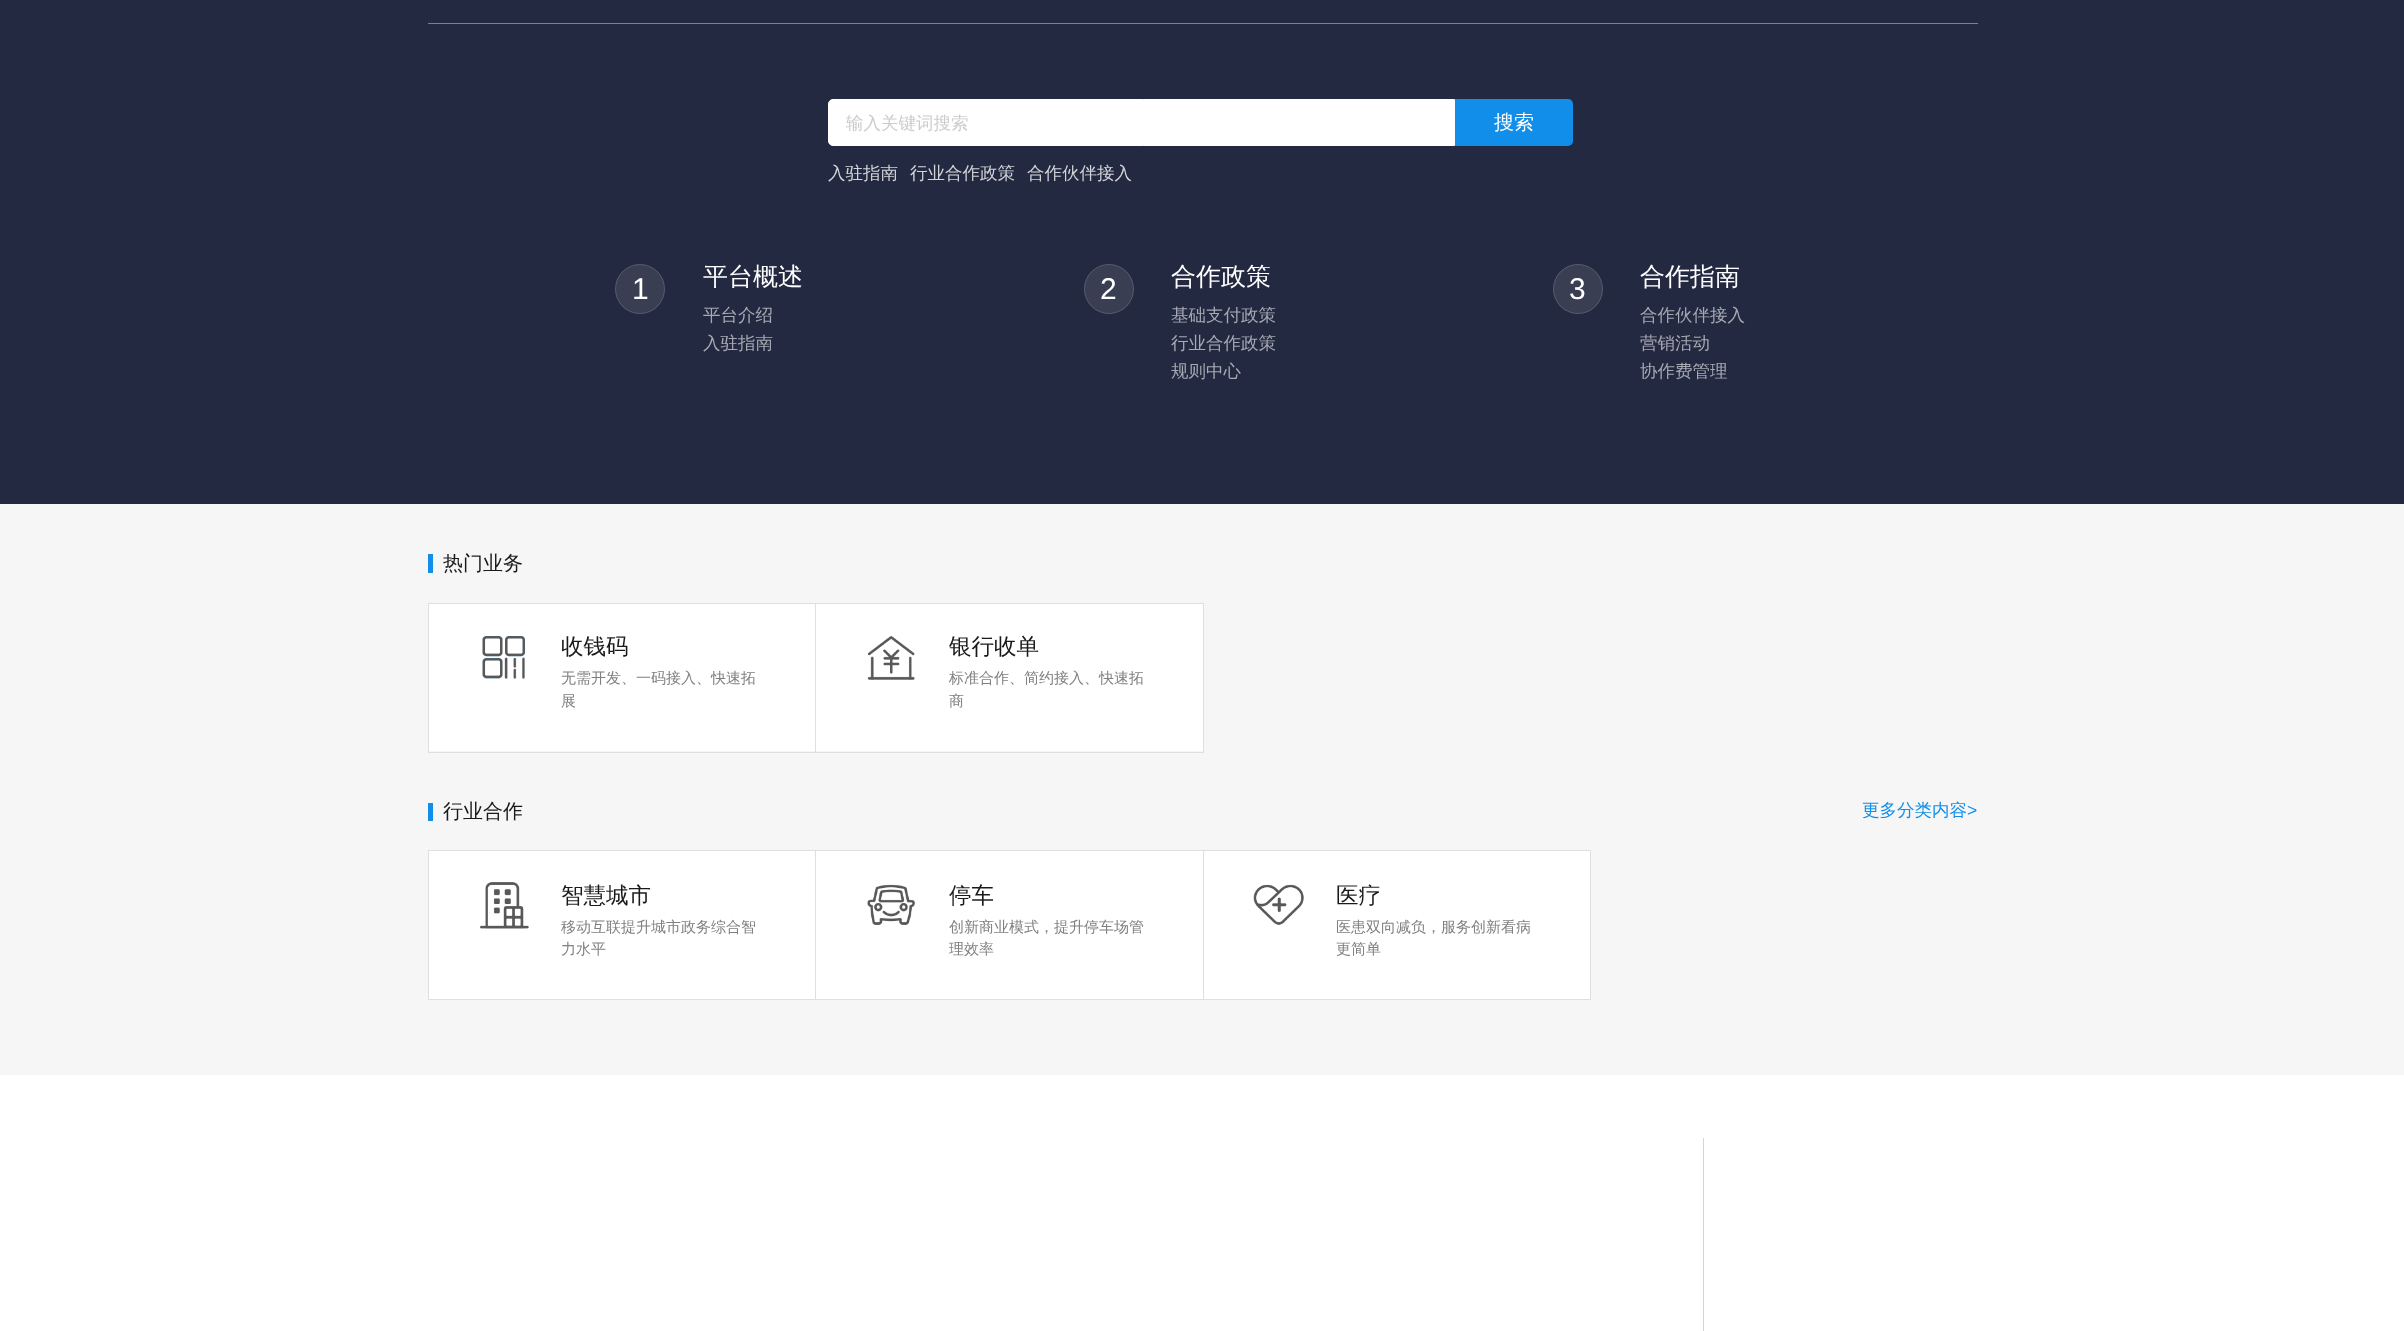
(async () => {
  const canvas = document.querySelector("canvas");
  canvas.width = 2404;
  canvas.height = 1331;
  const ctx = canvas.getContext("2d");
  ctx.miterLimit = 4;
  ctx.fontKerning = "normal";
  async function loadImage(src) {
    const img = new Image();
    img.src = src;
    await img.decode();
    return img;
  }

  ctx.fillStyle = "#ffffff";
  ctx.fillRect(0, 0, 2404, 1331);
  for (const [x, y, w, h, color] of [
    [0, 504, 2404, 571, "#f6f6f7"],
    [0, 0, 2404, 504, "#232940"],
    [428, 23, 1550, 1, "#7b7f8c"],
  ]) {
    ctx.fillStyle = color;
    ctx.fillRect(x, y, w, h);
  }
  ctx.fillStyle = "#ffffff";
  ctx.beginPath();
  ctx.roundRect(828.5, 99.5, 626, 46, [4.5, 0, 0, 4.5]);
  ctx.fill();
  ctx.strokeStyle = "#ffffff";
  ctx.stroke();
  ctx.fillStyle = "#108ee9";
  ctx.beginPath();
  ctx.roundRect(1455, 99, 118, 47, [0, 5, 5, 0]);
  ctx.fill();
  ctx.fillStyle = "#393e53";
  ctx.beginPath();
  ctx.arc(640, 289, 25, 0, Math.PI * 2);
  ctx.fill();
  ctx.beginPath();
  ctx.arc(640, 289, 24.5, 0, Math.PI * 2);
  ctx.strokeStyle = "rgba(255, 255, 255, 0.15)";
  ctx.stroke();
  ctx.beginPath();
  ctx.arc(1109, 289, 25, 0, Math.PI * 2);
  ctx.fill();
  ctx.beginPath();
  ctx.arc(1109, 289, 24.5, 0, Math.PI * 2);
  ctx.stroke();
  ctx.beginPath();
  ctx.arc(1578, 289, 25, 0, Math.PI * 2);
  ctx.fill();
  ctx.beginPath();
  ctx.arc(1578, 289, 24.5, 0, Math.PI * 2);
  ctx.stroke();
  ctx.fillStyle = "#108ee9";
  ctx.fillRect(428, 554, 5, 19);
  ctx.strokeStyle = "#dfdfdf";
  ctx.strokeRect(428.5, 603.5, 387, 149);
  ctx.fillStyle = "#ffffff";
  ctx.fillRect(429, 604, 386, 147);
  ctx.drawImage(await loadImage("img/1.png"), 482, 636, 43, 43);
  ctx.strokeRect(815.5, 603.5, 388, 149);
  ctx.fillRect(816, 604, 387, 147);
  ctx.drawImage(await loadImage("img/2.png"), 867, 636, 48, 44);
  ctx.fillStyle = "#108ee9";
  ctx.fillRect(428, 803, 5, 18);
  ctx.strokeRect(428.5, 850.5, 387, 149);
  ctx.fillStyle = "#ffffff";
  ctx.fillRect(429, 851, 386, 148);
  ctx.drawImage(await loadImage("img/3.png"), 480, 882, 49, 47);
  ctx.strokeRect(815.5, 850.5, 388, 149);
  ctx.fillRect(816, 851, 387, 148);
  ctx.drawImage(await loadImage("img/4.png"), 867, 884, 48, 41);
  ctx.strokeRect(1203.5, 850.5, 387, 149);
  ctx.fillRect(1204, 851, 386, 148);
  ctx.drawImage(await loadImage("img/5.png"), 1253, 884, 51, 41);
  ctx.fillStyle = "#d5d5d5";
  ctx.fillRect(1703, 1138, 1, 193);
  ctx.font = "500 17.5px WenQuanYi Zen Hei";
  ctx.fillStyle = "#cccccc";
  ctx.fillText("输入关键词搜索", 846, 129);
  ctx.font = "500 20px WenQuanYi Zen Hei";
  ctx.fillStyle = "#ffffff";
  ctx.fillText("搜索", 1494, 129);
  ctx.font = "500 17.5px WenQuanYi Zen Hei";
  ctx.fillStyle = "#d3d4d9";
  for (const [text, x, y] of [
    ["入驻指南", 828, 179],
    ["行业合作政策", 910, 179],
    ["合作伙伴接入", 1027, 179],
  ]) {
    ctx.fillText(text, x, y);
  }
  ctx.font = "30px Liberation Sans";
  ctx.fillStyle = "#ffffff";
  ctx.fillText("1", 632, 299);
  ctx.font = "500 25px WenQuanYi Zen Hei";
  ctx.fillText("平台概述", 703, 285);
  ctx.font = "500 17.5px WenQuanYi Zen Hei";
  ctx.fillStyle = "#a7a9b3";
  ctx.fillText("平台介绍", 703, 321);
  ctx.fillText("入驻指南", 703, 349);
  ctx.font = "30px Liberation Sans";
  ctx.fillStyle = "#ffffff";
  ctx.fillText("2", 1100, 299);
  ctx.font = "500 25px WenQuanYi Zen Hei";
  ctx.fillText("合作政策", 1171, 285);
  ctx.font = "500 17.5px WenQuanYi Zen Hei";
  ctx.fillStyle = "#a7a9b3";
  for (const [text, x, y] of [
    ["基础支付政策", 1171, 321],
    ["行业合作政策", 1171, 349],
    ["规则中心", 1171, 377],
  ]) {
    ctx.fillText(text, x, y);
  }
  ctx.font = "30px Liberation Sans";
  ctx.fillStyle = "#ffffff";
  ctx.fillText("3", 1569, 299);
  ctx.font = "500 25px WenQuanYi Zen Hei";
  ctx.fillText("合作指南", 1640, 285);
  ctx.font = "500 17.5px WenQuanYi Zen Hei";
  ctx.fillStyle = "#a7a9b3";
  for (const [text, x, y] of [
    ["合作伙伴接入", 1640, 321],
    ["营销活动", 1640, 349],
    ["协作费管理", 1640, 377],
  ]) {
    ctx.fillText(text, x, y);
  }
  ctx.font = "500 20px WenQuanYi Zen Hei";
  ctx.fillStyle = "#1a1a1a";
  ctx.fillText("热门业务", 443, 570);
  ctx.font = "500 22.5px WenQuanYi Zen Hei";
  ctx.fillText("收钱码", 561, 654);
  ctx.font = "500 15px WenQuanYi Zen Hei";
  ctx.fillStyle = "#808080";
  ctx.fillText("无需开发、一码接入、快速拓", 561, 683);
  ctx.fillText("展", 561, 706);
  ctx.font = "500 22.5px WenQuanYi Zen Hei";
  ctx.fillStyle = "#1a1a1a";
  ctx.fillText("银行收单", 949, 654);
  ctx.font = "500 15px WenQuanYi Zen Hei";
  ctx.fillStyle = "#808080";
  ctx.fillText("标准合作、简约接入、快速拓", 949, 683);
  ctx.fillText("商", 949, 706);
  ctx.font = "500 20px WenQuanYi Zen Hei";
  ctx.fillStyle = "#1a1a1a";
  ctx.fillText("行业合作", 443, 818);
  ctx.font = "500 17.5px WenQuanYi Zen Hei";
  ctx.fillStyle = "#108ee9";
  ctx.fillText("更多分类内容", 1862, 816);
  ctx.font = "17.5px Liberation Sans";
  ctx.fillText(">", 1967, 816);
  ctx.font = "500 22.5px WenQuanYi Zen Hei";
  ctx.fillStyle = "#1a1a1a";
  ctx.fillText("智慧城市", 561, 903);
  ctx.font = "500 15px WenQuanYi Zen Hei";
  ctx.fillStyle = "#808080";
  ctx.fillText("移动互联提升城市政务综合智", 561, 932);
  ctx.fillText("力水平", 561, 954);
  ctx.font = "500 22.5px WenQuanYi Zen Hei";
  ctx.fillStyle = "#1a1a1a";
  ctx.fillText("停车", 949, 903);
  ctx.font = "500 15px WenQuanYi Zen Hei";
  ctx.fillStyle = "#808080";
  ctx.fillText("创新商业模式，提升停车场管", 949, 932);
  ctx.fillText("理效率", 949, 954);
  ctx.font = "500 22.5px WenQuanYi Zen Hei";
  ctx.fillStyle = "#1a1a1a";
  ctx.fillText("医疗", 1336, 903);
  ctx.font = "500 15px WenQuanYi Zen Hei";
  ctx.fillStyle = "#808080";
  ctx.fillText("医患双向减负，服务创新看病", 1336, 932);
  ctx.fillText("更简单", 1336, 954);
})();
